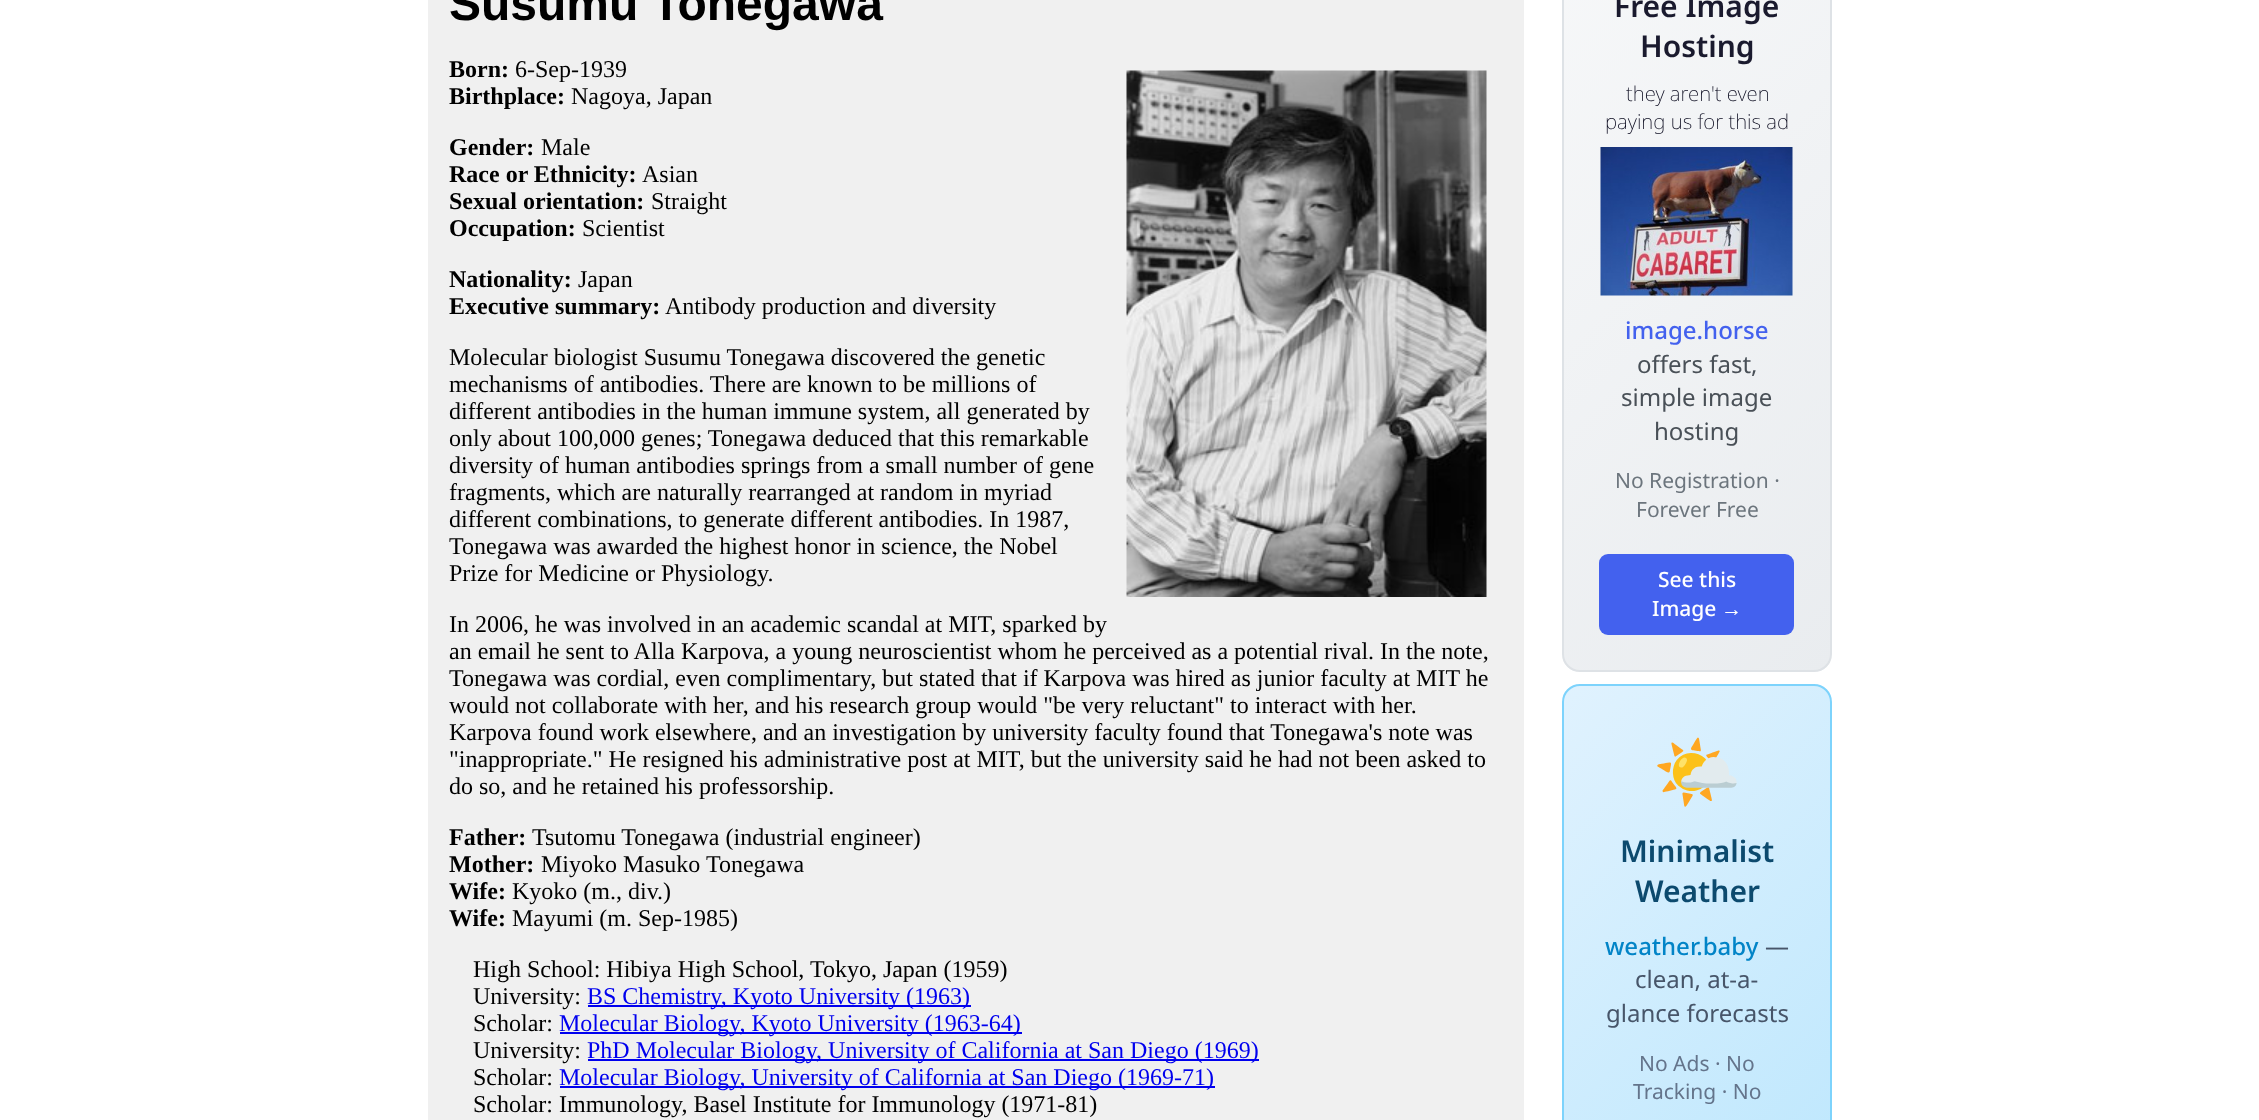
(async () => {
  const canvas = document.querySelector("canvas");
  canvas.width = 2259;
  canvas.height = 1120;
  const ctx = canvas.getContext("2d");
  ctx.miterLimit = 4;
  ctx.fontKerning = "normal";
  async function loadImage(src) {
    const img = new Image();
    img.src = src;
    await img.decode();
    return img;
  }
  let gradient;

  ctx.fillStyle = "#ffffff";
  ctx.fillRect(0, 0, 2259, 1120);
  ctx.fillStyle = "#f0f0f0";
  ctx.fillRect(428, 0, 1096, 1120);
  ctx.drawImage(await loadImage("img/1.png"), 1126, 70, 361, 527);
  for (const [x, y, w, h, color] of [
    [588, 1005, 383, 2, "#0000ee"],
    [560, 1032, 462, 2, "#0000ee"],
    [588, 1059, 671, 2, "#0000ee"],
    [560, 1086, 655, 2, "#0000ee"],
  ]) {
    ctx.fillStyle = color;
    ctx.fillRect(x, y, w, h);
  }
  ctx.save();
  ctx.beginPath();
  ctx.roundRect(1562, -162, 270, 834, 18);
  ctx.clip();
  gradient = ctx.createLinearGradient(1422, -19, 1971, 530);
  gradient.addColorStop(0, "#f8f9fa");
  gradient.addColorStop(1, "#e9ecef");
  ctx.fillStyle = gradient;
  ctx.fillRect(1563, 0, 267, 671);
  ctx.restore();
  ctx.beginPath();
  ctx.roundRect(1563, -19, 268, 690, 17);
  ctx.strokeStyle = "#dee2e6";
  ctx.lineWidth = 2;
  ctx.stroke();
  ctx.drawImage(await loadImage("img/2.png"), 1600, 147, 193, 149);
  ctx.fillStyle = "#4361ee";
  ctx.beginPath();
  ctx.roundRect(1599, 554, 195, 81, 9);
  ctx.fill();
  ctx.save();
  ctx.beginPath();
  ctx.roundRect(1562, 684, 270, 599, 18);
  ctx.clip();
  gradient = ctx.createLinearGradient(1481, 768, 1912, 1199);
  gradient.addColorStop(0, "#e0f2fe");
  gradient.addColorStop(1, "#bae6fd");
  ctx.fillStyle = gradient;
  ctx.fillRect(1563, 686, 267, 434);
  ctx.restore();
  ctx.beginPath();
  ctx.roundRect(1563, 685, 268, 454, 17);
  ctx.strokeStyle = "#7dd3fc";
  ctx.stroke();
  ctx.font = "bold 48px Liberation Sans";
  ctx.fillStyle = "#000000";
  ctx.fillText("Susumu Tonegawa", 449, 20);
  ctx.font = "bold 24px Liberation Serif";
  ctx.fillText("Born:", 449, 77);
  ctx.font = "24px Liberation Serif";
  ctx.fillText("6-Sep-1939", 515, 77);
  ctx.font = "bold 24px Liberation Serif";
  ctx.fillText("Birthplace:", 449, 104);
  ctx.font = "24px Liberation Serif";
  ctx.fillText("Nagoya, Japan", 571, 104);
  ctx.font = "bold 24px Liberation Serif";
  ctx.fillText("Gender:", 449, 155);
  ctx.font = "24px Liberation Serif";
  ctx.fillText("Male", 541, 155);
  ctx.font = "bold 24px Liberation Serif";
  ctx.fillText("Race or Ethnicity:", 449, 182);
  ctx.font = "24px Liberation Serif";
  ctx.fillText("Asian", 642, 182);
  ctx.font = "bold 24px Liberation Serif";
  ctx.fillText("Sexual orientation:", 449, 209);
  ctx.font = "24px Liberation Serif";
  ctx.fillText("Straight", 651, 209);
  ctx.font = "bold 24px Liberation Serif";
  ctx.fillText("Occupation:", 449, 236);
  ctx.font = "24px Liberation Serif";
  ctx.fillText("Scientist", 582, 236);
  ctx.font = "bold 24px Liberation Serif";
  ctx.fillText("Nationality:", 449, 287);
  ctx.font = "24px Liberation Serif";
  ctx.fillText("Japan", 578, 287);
  ctx.font = "bold 24px Liberation Serif";
  ctx.fillText("Executive summary:", 449, 314);
  ctx.font = "24px Liberation Serif";
  for (const [text, x, y] of [
    ["Antibody production and diversity", 665, 314],
    ["Molecular biologist Susumu Tonegawa discovered the genetic", 449, 365],
    ["mechanisms of antibodies. There are known to be millions of", 449, 392],
    ["different antibodies in the human immune system, all generated by", 449, 419],
    ["only about 100,000 genes; Tonegawa deduced that this remarkable", 449, 446],
    ["diversity of human antibodies springs from a small number of gene", 449, 473],
    ["fragments, which are naturally rearranged at random in myriad", 449, 500],
    ["different combinations, to generate different antibodies. In 1987,", 449, 527],
    ["Tonegawa was awarded the highest honor in science, the Nobel", 449, 554],
    ["Prize for Medicine or Physiology.", 449, 581],
    ["In 2006, he was involved in an academic scandal at MIT, sparked by", 449, 632],
    ["an email he sent to Alla Karpova, a young neuroscientist whom he perceived as a potential rival. In the note,", 449, 659],
    ["Tonegawa was cordial, even complimentary, but stated that if Karpova was hired as junior faculty at MIT he", 449, 686],
    ["would not collaborate with her, and his research group would \"be very reluctant\" to interact with her.", 449, 713],
    ["Karpova found work elsewhere, and an investigation by university faculty found that Tonegawa's note was", 449, 740],
    ["\"inappropriate.\" He resigned his administrative post at MIT, but the university said he had not been asked to", 449, 767],
    ["do so, and he retained his professorship.", 449, 794],
  ]) {
    ctx.fillText(text, x, y);
  }
  ctx.font = "bold 24px Liberation Serif";
  ctx.fillText("Father:", 449, 845);
  ctx.font = "24px Liberation Serif";
  ctx.fillText("Tsutomu Tonegawa (industrial engineer)", 532, 845);
  ctx.font = "bold 24px Liberation Serif";
  ctx.fillText("Mother:", 449, 872);
  ctx.font = "24px Liberation Serif";
  ctx.fillText("Miyoko Masuko Tonegawa", 541, 872);
  ctx.font = "bold 24px Liberation Serif";
  ctx.fillText("Wife:", 449, 899);
  ctx.font = "24px Liberation Serif";
  ctx.fillText("Kyoko (m., div.)", 512, 899);
  ctx.font = "bold 24px Liberation Serif";
  ctx.fillText("Wife:", 449, 926);
  ctx.font = "24px Liberation Serif";
  for (const [text, x, y] of [
    ["Mayumi (m. Sep-1985)", 512, 926],
    ["High School: Hibiya High School, Tokyo, Japan (1959)", 473, 977],
    ["University:", 473, 1004],
  ]) {
    ctx.fillText(text, x, y);
  }
  ctx.fillStyle = "#0000ee";
  ctx.fillText("BS Chemistry, Kyoto University (1963)", 587, 1004);
  ctx.fillStyle = "#000000";
  ctx.fillText("Scholar:", 473, 1031);
  ctx.fillStyle = "#0000ee";
  ctx.fillText("Molecular Biology, Kyoto University (1963-64)", 559, 1031);
  ctx.fillStyle = "#000000";
  ctx.fillText("University:", 473, 1058);
  ctx.fillStyle = "#0000ee";
  ctx.fillText("PhD Molecular Biology, University of California at San Diego (1969)", 587, 1058);
  ctx.fillStyle = "#000000";
  ctx.fillText("Scholar:", 473, 1085);
  ctx.fillStyle = "#0000ee";
  ctx.fillText("Molecular Biology, University of California at San Diego (1969-71)", 559, 1085);
  ctx.fillStyle = "#000000";
  ctx.fillText("Scholar: Immunology, Basel Institute for Immunology (1971-81)", 473, 1112);
  ctx.font = "600 30px Noto Sans";
  ctx.fillStyle = "#1a1a2e";
  ctx.fillText("Free Image", 1614, 17);
  ctx.fillText("Hosting", 1640, 57);
  ctx.font = "200 20.5px Noto Sans";
  ctx.fillStyle = "#0a0a1e";
  ctx.fillText("they aren't even", 1626, 101);
  ctx.fillText("paying us for this ad", 1605, 129);
  ctx.font = "500 24px Noto Sans";
  ctx.fillStyle = "#4361ee";
  ctx.fillText("image.horse", 1625, 339);
  ctx.font = "24px Noto Sans";
  ctx.fillStyle = "#495057";
  for (const [text, x, y] of [
    ["offers fast,", 1637, 373],
    ["simple image", 1621, 406],
    ["hosting", 1654, 440],
  ]) {
    ctx.fillText(text, x, y);
  }
  ctx.font = "21px Noto Sans";
  ctx.fillStyle = "#6c757d";
  ctx.fillText("No Registration ·", 1615, 488);
  ctx.fillText("Forever Free", 1636, 517);
  ctx.font = "500 21px Noto Sans";
  ctx.fillStyle = "#ffffff";
  ctx.fillText("See this", 1658, 587);
  ctx.fillText("Image", 1652, 616);
  ctx.font = "21px Liberation Sans";
  ctx.fillText("→", 1721, 616);
  ctx.font = "72px Noto Color Emoji";
  ctx.fillStyle = "#0000ee";
  ctx.fillText("🌤️", 1652, 797);
  ctx.font = "600 30px Noto Sans";
  ctx.fillStyle = "#0c4a6e";
  ctx.fillText("Minimalist", 1620, 862);
  ctx.fillText("Weather", 1635, 902);
  ctx.font = "500 24px Noto Sans";
  ctx.fillStyle = "#0284c7";
  ctx.fillText("weather.baby", 1605, 955);
  ctx.font = "24px Noto Sans";
  ctx.fillStyle = "#475569";
  for (const [text, x, y] of [
    ["—", 1765, 955],
    ["clean, at-a-", 1635, 988],
    ["glance forecasts", 1606, 1022],
  ]) {
    ctx.fillText(text, x, y);
  }
  ctx.font = "21px Noto Sans";
  ctx.fillStyle = "#64748b";
  ctx.fillText("No Ads · No", 1639, 1071);
  ctx.fillText("Tracking · No", 1633, 1099);
})();
